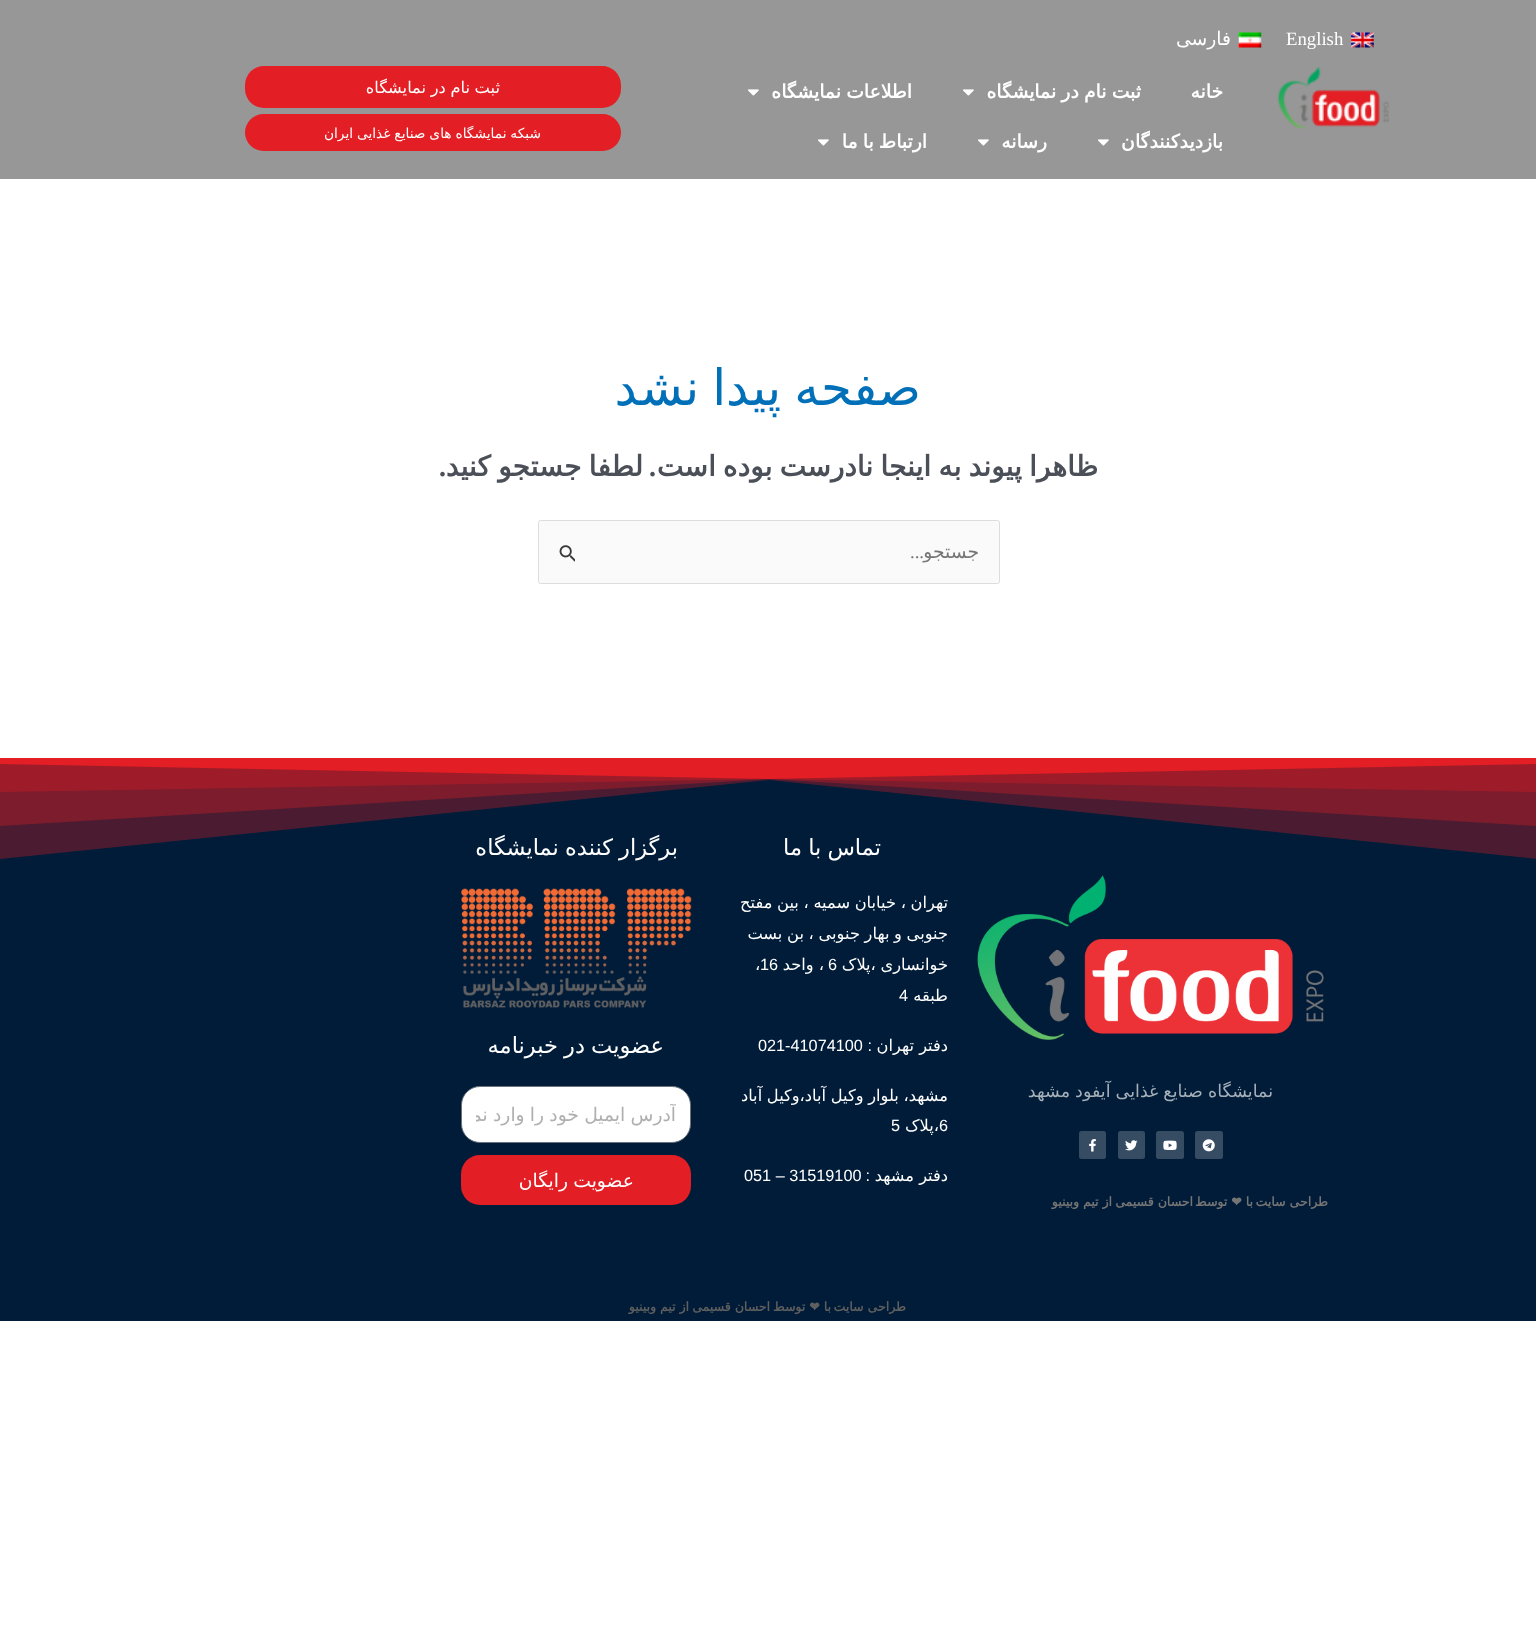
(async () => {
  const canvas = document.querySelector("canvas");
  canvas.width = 1536;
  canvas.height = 1640;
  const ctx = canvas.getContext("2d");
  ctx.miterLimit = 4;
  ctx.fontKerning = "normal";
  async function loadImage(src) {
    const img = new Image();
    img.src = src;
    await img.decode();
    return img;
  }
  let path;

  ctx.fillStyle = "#ffffff";
  ctx.fillRect(0, 0, 1536, 1640);
  ctx.fillStyle = "#979797";
  ctx.fillRect(0, 0, 1536, 179);
  ctx.drawImage(await loadImage("img/1.png"), 1351, 32, 23, 16);
  ctx.drawImage(await loadImage("img/2.png"), 1238, 32, 24, 16);
  ctx.drawImage(await loadImage("img/3.png"), 1277, 66, 112, 63);
  ctx.drawImage(await loadImage("img/4.png"), 963, 89, 11, 7);
  ctx.drawImage(await loadImage("img/4.png"), 748, 89, 11, 7);
  ctx.drawImage(await loadImage("img/4.png"), 1098, 139, 11, 7);
  ctx.drawImage(await loadImage("img/4.png"), 978, 139, 11, 7);
  ctx.drawImage(await loadImage("img/4.png"), 818, 139, 11, 7);
  ctx.fillStyle = "#e31e24";
  ctx.beginPath();
  ctx.roundRect(245, 66, 376, 42, 19);
  ctx.fill();
  ctx.beginPath();
  ctx.roundRect(245, 114, 376, 37, 18.5);
  ctx.fill();
  ctx.fillStyle = "#fafafa";
  ctx.beginPath();
  ctx.roundRect(538.5, 520.5, 461, 63, 2);
  ctx.fill();
  ctx.strokeStyle = "#dddddd";
  ctx.stroke();
  ctx.drawImage(await loadImage("img/5.png"), 559, 545, 16, 17);
  ctx.fillStyle = "#001c38";
  ctx.fillRect(0, 764, 1536, 557);
  ctx.fillStyle = "rgba(227, 30, 36, 0.33)";
  path = new Path2D("M0 758V859L769 780L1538 859V758Z");
  ctx.fill(path);
  path = new Path2D("M0 758V826L769 779L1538 826V758Z");
  ctx.fill(path);
  path = new Path2D("M0 758V792L769 779L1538 792V758Z");
  ctx.fill(path);
  ctx.fillStyle = "#e31e24";
  path = new Path2D("M0 758V764L769 779L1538 764V758Z");
  ctx.fill(path);
  ctx.drawImage(await loadImage("img/6.png"), 977, 875, 347, 165);
  ctx.fillStyle = "#364c62";
  ctx.beginPath();
  ctx.roundRect(1195, 1131, 28, 28, 2.5);
  ctx.fill();
  ctx.drawImage(await loadImage("img/7.png"), 1202, 1139, 13, 13);
  ctx.beginPath();
  ctx.roundRect(1156, 1131, 28, 28, 2.5);
  ctx.fill();
  ctx.drawImage(await loadImage("img/8.png"), 1163, 1140, 14, 10);
  ctx.beginPath();
  ctx.roundRect(1118, 1131, 27, 28, 2.5);
  ctx.fill();
  ctx.drawImage(await loadImage("img/9.png"), 1125, 1140, 13, 11);
  ctx.beginPath();
  ctx.roundRect(1079, 1131, 27, 28, 2.5);
  ctx.fill();
  ctx.drawImage(await loadImage("img/10.png"), 1089, 1139, 7, 13);
  ctx.drawImage(await loadImage("img/11.png"), 461, 888, 231, 120);
  ctx.fillStyle = "#ffffff";
  ctx.beginPath();
  ctx.roundRect(461.5, 1086.5, 229, 56, 18.5);
  ctx.fill();
  ctx.strokeStyle = "#69727d";
  ctx.stroke();
  ctx.fillStyle = "#e31e24";
  ctx.beginPath();
  ctx.roundRect(461, 1155, 230, 50, 19);
  ctx.fill();
  ctx.font = "18.75px Liberation Serif";
  ctx.fillStyle = "#ffffff";
  ctx.fillText("English", 1286, 45);
  ctx.direction = "rtl";
  ctx.font = "18.75px DejaVu Sans";
  ctx.fillText("فارسی", 1231, 45);
  ctx.font = "bold 18.75px DejaVu Sans";
  ctx.fillText("خانه", 1223, 98);
  ctx.wordSpacing = "-0.75px";
  ctx.fillText("ثبت نام در نمایشگاه", 1141, 98);
  ctx.fillText("اطلاعات نمایشگاه", 912, 98);
  ctx.wordSpacing = "0px";
  ctx.fillText("بازدیدکنندگان", 1223, 148);
  ctx.fillText("رسانه", 1047, 148);
  ctx.wordSpacing = "-0.75px";
  ctx.fillText("ارتباط با ما", 927, 148);
  ctx.wordSpacing = "-0.5px";
  ctx.font = "16.25px DejaVu Sans";
  ctx.fillText("ثبت نام در نمایشگاه", 500, 93);
  ctx.font = "13.75px DejaVu Sans";
  ctx.fillText("شبکه نمایشگاه های صنایع غذایی ایران", 541, 138);
  ctx.wordSpacing = "-3px";
  ctx.font = "50px DejaVu Sans";
  ctx.fillStyle = "#0170b9";
  ctx.fillText("صفحه پیدا نشد", 921, 405);
  ctx.wordSpacing = "-1.75px";
  ctx.font = "bold 28.1px DejaVu Sans";
  ctx.fillStyle = "#4b4f58";
  ctx.fillText("ظاهرا پیوند به اینجا نادرست بوده است", 1098, 476);
  ctx.wordSpacing = "0px";
  ctx.font = "bold 28.1px Liberation Serif";
  ctx.fillText(".", 656, 476);
  ctx.wordSpacing = "-1.75px";
  ctx.font = "bold 28.1px DejaVu Sans";
  ctx.fillText("لطفا جستجو کنید", 643, 476);
  ctx.wordSpacing = "0px";
  ctx.font = "bold 28.1px Liberation Serif";
  ctx.fillText(".", 446, 476);
  ctx.font = "18.75px Liberation Serif";
  ctx.fillStyle = "#757575";
  ctx.fillText("...", 924, 558);
  ctx.font = "18.75px DejaVu Sans";
  ctx.fillText("جستجو", 979, 558);
  ctx.wordSpacing = "-0.5px";
  ctx.font = "17.5px DejaVu Sans";
  ctx.fillStyle = "#a6b0b9";
  ctx.fillText("نمایشگاه صنایع غذایی آیفود مشهد", 1273, 1097);
  ctx.wordSpacing = "0px";
  ctx.font = "bold 12.5px DejaVu Sans";
  ctx.fillStyle = "#757575";
  for (const [text, x, y] of [
    ["طراحی سایت", 1328, 1206],
    ["با ❤ توسط", 1253, 1206],
    ["احسان قسیمی", 1193, 1206],
    ["از تیم وبینیو", 1112, 1206],
  ]) {
    ctx.fillText(text, x, y);
  }
  ctx.wordSpacing = "-1px";
  ctx.font = "22.5px DejaVu Sans";
  ctx.fillStyle = "#ffffff";
  ctx.fillText("تماس با ما", 881, 855);
  ctx.wordSpacing = "-0.5px";
  ctx.font = "16.25px DejaVu Sans";
  for (const [text, x, y] of [
    ["تهران ، خیابان سمیه ، بین مفتح", 948, 908],
    ["جنوبی و بهار جنوبی ، بن بست", 948, 939],
    ["خوانساری ،پلاک", 948, 970],
  ]) {
    ctx.fillText(text, x, y);
  }
  ctx.wordSpacing = "0px";
  ctx.direction = "ltr";
  ctx.font = "16.25px Liberation Sans";
  ctx.fillText("6", 828, 970);
  ctx.direction = "rtl";
  ctx.font = "16.25px DejaVu Sans";
  ctx.fillText("، واحد", 824, 970);
  ctx.direction = "ltr";
  ctx.font = "16.25px Liberation Sans";
  ctx.fillText("16", 760, 970);
  ctx.font = "16.25px DejaVu Sans";
  ctx.fillText("،", 755, 970);
  ctx.direction = "rtl";
  ctx.fillText("طبقه", 948, 1001);
  ctx.direction = "ltr";
  ctx.font = "16.25px Liberation Sans";
  ctx.fillText("4", 899, 1001);
  ctx.direction = "rtl";
  ctx.font = "16.25px DejaVu Sans";
  ctx.fillText("دفتر تهران", 948, 1051);
  ctx.font = "16.25px Liberation Sans";
  ctx.fillText(":", 872, 1051);
  ctx.direction = "ltr";
  ctx.fillText("021-41074100", 758, 1051);
  ctx.wordSpacing = "-0.5px";
  ctx.direction = "rtl";
  ctx.font = "16.25px DejaVu Sans";
  ctx.fillText("مشهد، بلوار وکیل آباد،وکیل آباد", 948, 1101);
  ctx.wordSpacing = "0px";
  ctx.direction = "ltr";
  ctx.font = "16.25px Liberation Sans";
  ctx.fillText("6", 939, 1131);
  ctx.direction = "rtl";
  ctx.font = "16.25px DejaVu Sans";
  ctx.fillText("،پلاک", 939, 1131);
  ctx.direction = "ltr";
  ctx.font = "16.25px Liberation Sans";
  ctx.fillText("5", 891, 1131);
  ctx.direction = "rtl";
  ctx.font = "16.25px DejaVu Sans";
  ctx.fillText("دفتر مشهد", 948, 1181);
  ctx.font = "16.25px Liberation Sans";
  ctx.fillText(":", 870, 1181);
  ctx.direction = "ltr";
  ctx.fillText("051 – 31519100", 744, 1181);
  ctx.wordSpacing = "-1px";
  ctx.direction = "rtl";
  ctx.font = "22.5px DejaVu Sans";
  ctx.fillText("برگزار کننده نمایشگاه", 678, 855);
  ctx.fillText("عضویت در خبرنامه", 664, 1053);
  ctx.save();
  ctx.beginPath();
  ctx.rect(476, 1104, 200, 22);
  ctx.clip();
  ctx.wordSpacing = "-0.75px";
  ctx.font = "18.75px DejaVu Sans";
  ctx.fillStyle = "#afafaf";
  ctx.fillText("آدرس ایمیل خود را وارد نمایید", 676, 1121);
  ctx.restore();
  ctx.wordSpacing = "-0.75px";
  ctx.font = "18.75px DejaVu Sans";
  ctx.fillText("عضویت رایگان", 634, 1187);
  ctx.wordSpacing = "0px";
  ctx.font = "bold 12.5px DejaVu Sans";
  ctx.fillStyle = "#5f5f5f";
  for (const [text, x, y] of [
    ["طراحی سایت", 906, 1311],
    ["با ❤ توسط", 831, 1311],
    ["احسان قسیمی", 770, 1311],
    ["از تیم وبینیو", 689, 1311],
  ]) {
    ctx.fillText(text, x, y);
  }
})();
